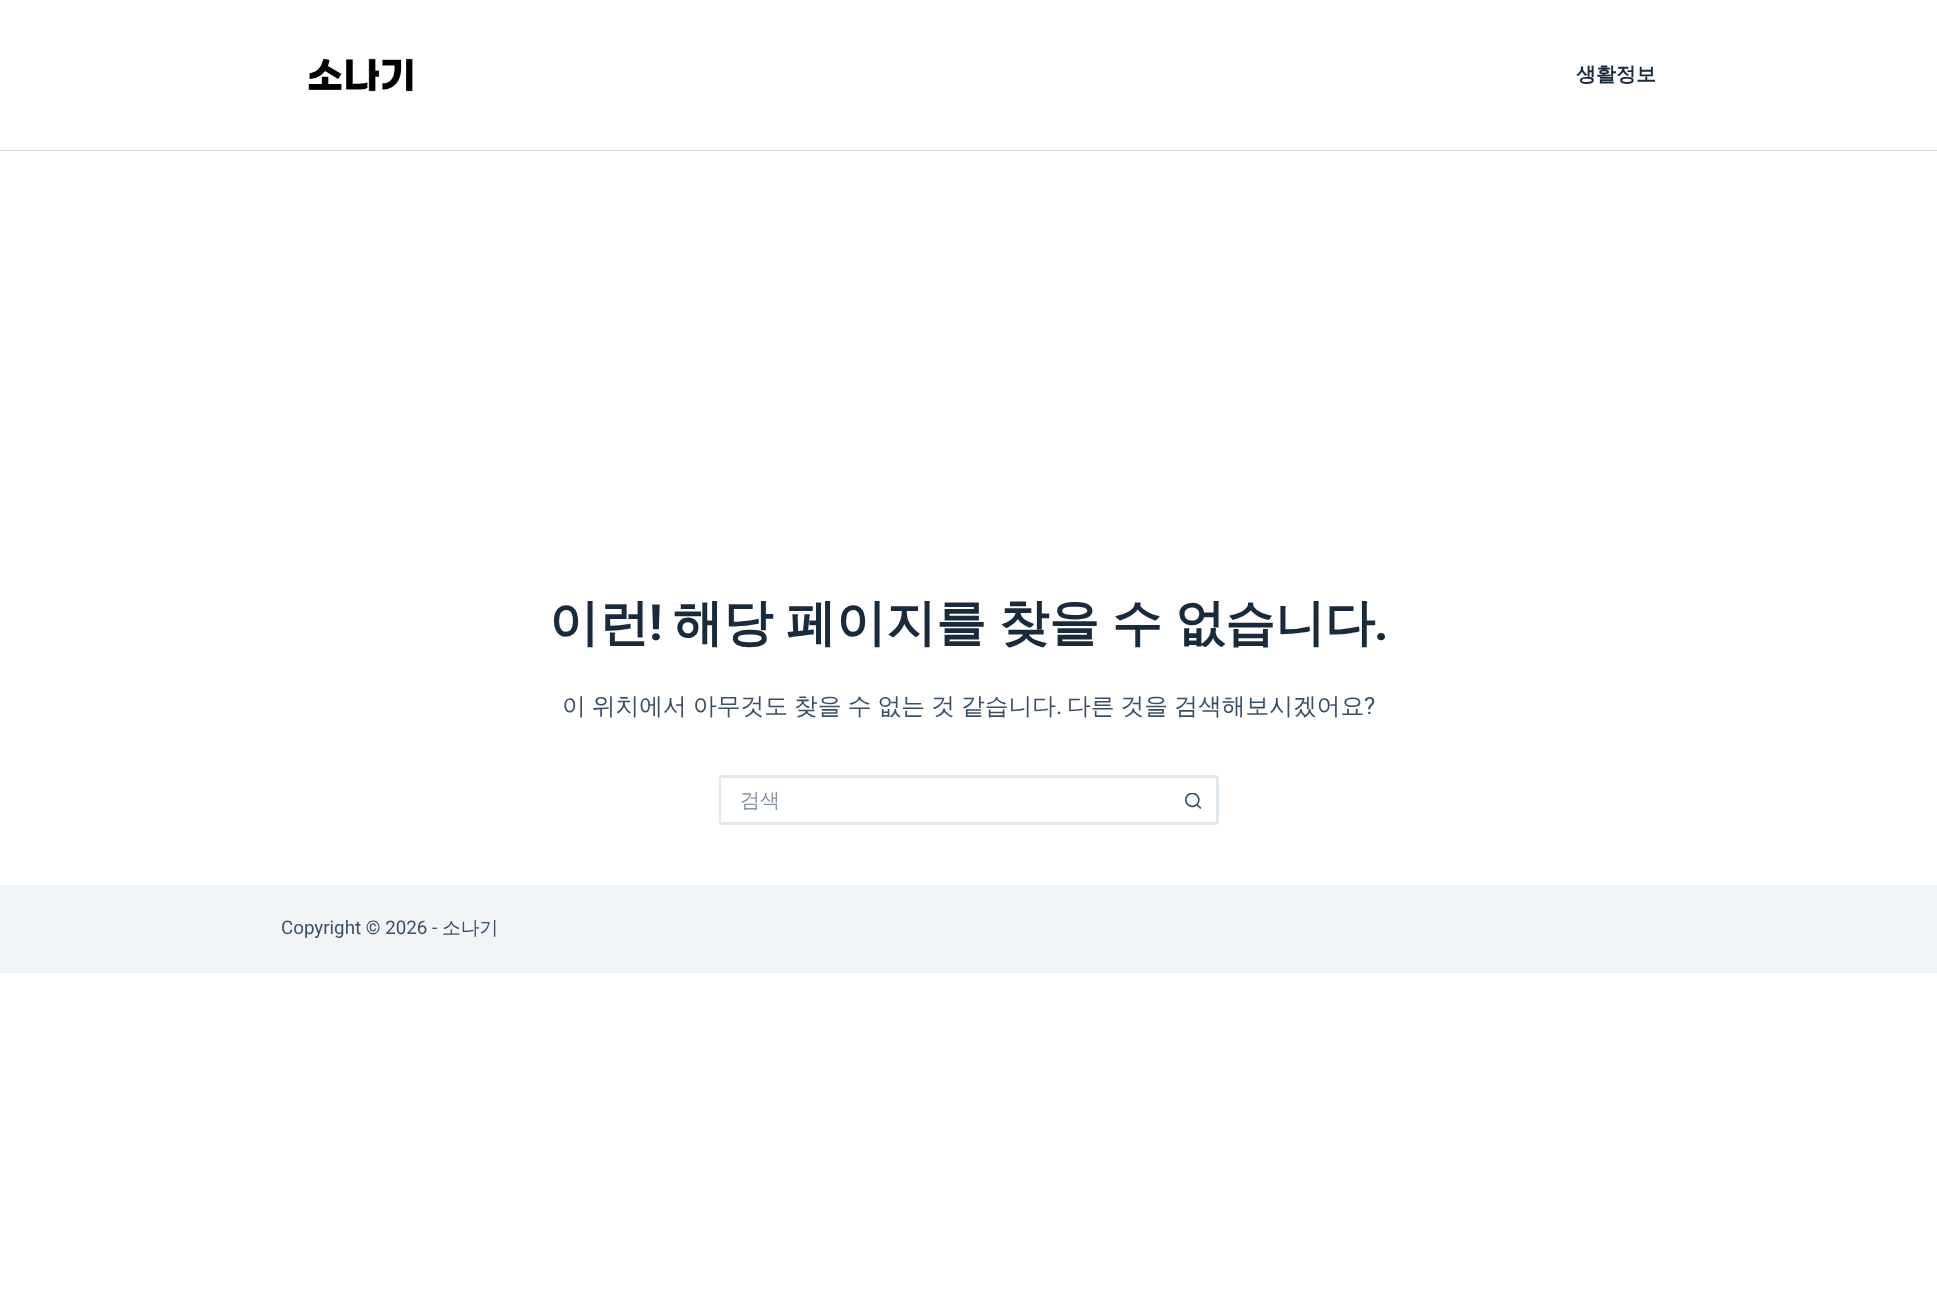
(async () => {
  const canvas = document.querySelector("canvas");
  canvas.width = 1937;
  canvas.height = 1303;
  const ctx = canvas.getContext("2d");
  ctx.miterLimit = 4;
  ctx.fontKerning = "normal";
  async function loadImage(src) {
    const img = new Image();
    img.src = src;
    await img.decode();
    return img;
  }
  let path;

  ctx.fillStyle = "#ffffff";
  ctx.fillRect(0, 0, 1937, 1303);
  ctx.fillStyle = "#d5d8dc";
  ctx.fillRect(0, 150, 1937, 1);
  ctx.drawImage(await loadImage("img/1.png"), 308, 58, 105, 34);
  ctx.fillStyle = "#e1e8ed";
  path = new Path2D("M722 775H1169V825H722C720 825 719 823 719 821V779C719 777 720 775 722 775ZM722 778H1169V822H722H721V779C721 778 722 778 722 778Z");
  ctx.fill(path, "evenodd");
  path = new Path2D("M1169 775H1215C1217 775 1219 777 1219 779V821C1219 823 1217 825 1215 825H1169ZM1169 778H1215C1216 778 1216 778 1216 779V821C1216 822 1216 822 1215 822H1169Z");
  ctx.fill(path, "evenodd");
  ctx.drawImage(await loadImage("img/2.png"), 1185, 793, 16, 16);
  ctx.fillStyle = "#f2f5f7";
  ctx.fillRect(0, 885, 1937, 88);
  ctx.font = "bold 20px WenQuanYi Zen Hei";
  ctx.fillStyle = "#192a3d";
  ctx.fillText("생활정보", 1576, 81);
  ctx.font = "bold 50px WenQuanYi Zen Hei";
  ctx.fillText("이런", 549, 640);
  ctx.font = "bold 50px Roboto";
  ctx.fillText("!", 649, 640);
  ctx.wordSpacing = "-2px";
  ctx.font = "bold 50px WenQuanYi Zen Hei";
  ctx.fillText("해당 페이지를 찾을 수 없습니다", 673, 640);
  ctx.wordSpacing = "0px";
  ctx.font = "bold 50px Roboto";
  ctx.fillText(".", 1374, 640);
  ctx.wordSpacing = "-1px";
  ctx.font = "500 23.75px WenQuanYi Zen Hei";
  ctx.fillStyle = "#3a4f66";
  ctx.fillText("이 위치에서 아무것도 찾을 수 없는 것 같습니다", 562, 714);
  ctx.wordSpacing = "0px";
  ctx.font = "23.75px Roboto";
  ctx.fillText(".", 1056, 714);
  ctx.wordSpacing = "-1px";
  ctx.font = "500 23.75px WenQuanYi Zen Hei";
  ctx.fillText("다른 것을 검색해보시겠어요", 1067, 714);
  ctx.wordSpacing = "0px";
  ctx.font = "23.75px Roboto";
  ctx.fillText("?", 1364, 714);
  ctx.font = "500 20px WenQuanYi Zen Hei";
  ctx.fillStyle = "#8995a3";
  ctx.fillText("검색", 740, 807);
  ctx.font = "18.75px Roboto";
  ctx.fillStyle = "#3a4f66";
  ctx.fillText("Copyright © 2026 -", 281, 934);
  ctx.font = "500 18.75px WenQuanYi Zen Hei";
  ctx.fillText("소나기", 442, 934);
})();
